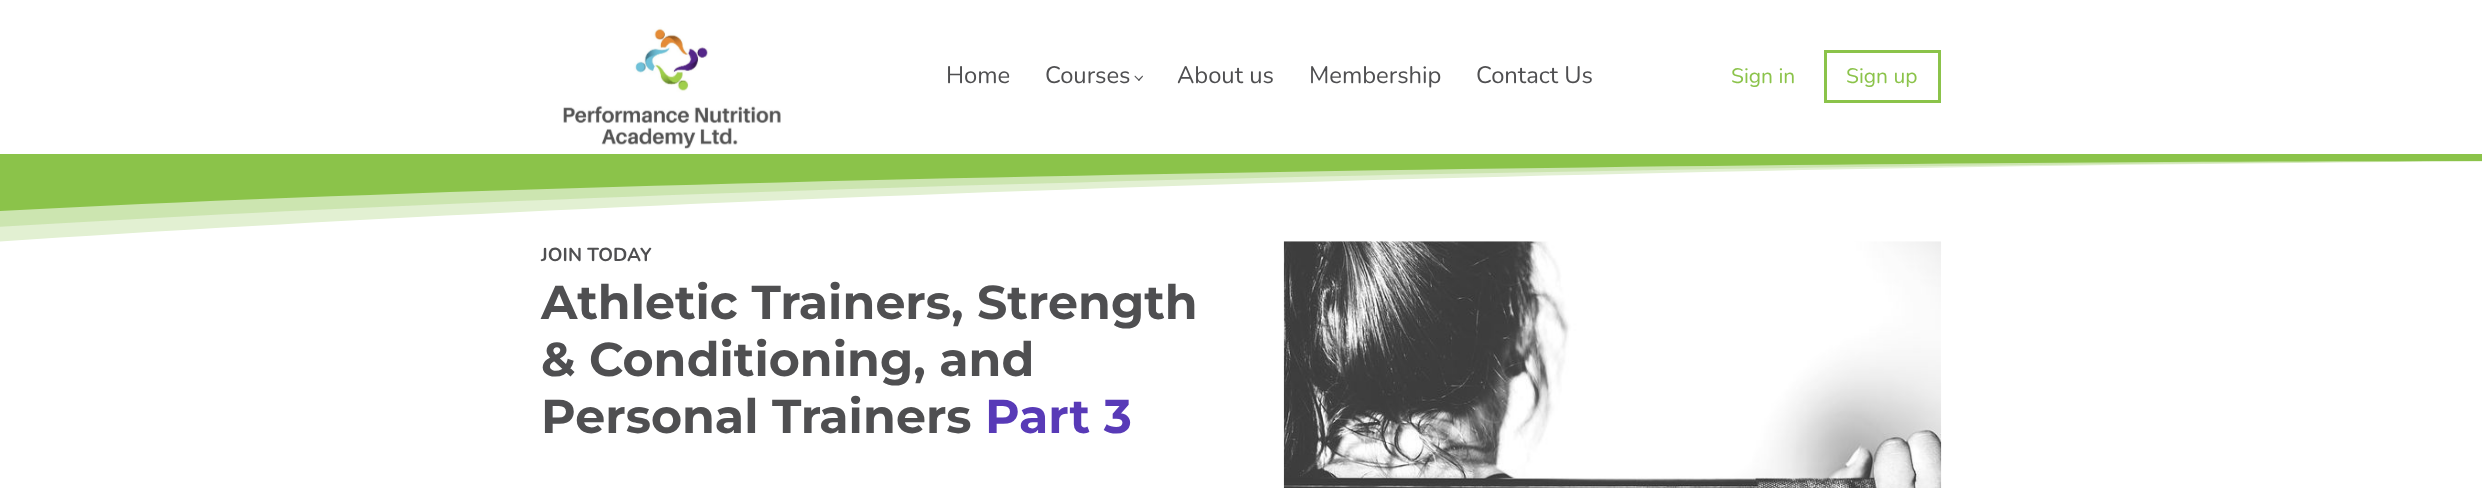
(async () => {
  const canvas = document.querySelector("canvas");
  canvas.width = 2482;
  canvas.height = 488;
  const ctx = canvas.getContext("2d");
  ctx.miterLimit = 4;
  ctx.fontKerning = "normal";
  async function loadImage(src) {
    const img = new Image();
    img.src = src;
    await img.decode();
    return img;
  }
  let path;

  ctx.fillStyle = "#ffffff";
  ctx.fillRect(0, 0, 2482, 488);
  ctx.drawImage(await loadImage("img/1.png"), 563, 27, 218, 122);
  ctx.fillStyle = "#4f4f51";
  path = new Path2D("M1143 76.5L1139 81L1138 80L1142.5 75.5Z");
  ctx.fill(path);
  path = new Path2D("M1139.5 80L1139 81L1134.5 76.5L1135 75.5Z");
  ctx.fill(path);
  ctx.strokeStyle = "#8bc34a";
  ctx.lineWidth = 3;
  ctx.strokeRect(1825.5, 51.5, 114, 50);
  ctx.save();
  ctx.beginPath();
  ctx.rect(0, 154, 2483, 90);
  ctx.clip();
  ctx.fillStyle = "#e2f0d2";
  path = new Path2D("M-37 244C612 200 1478 168 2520 161V151H-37Z");
  ctx.fill(path);
  ctx.fillStyle = "rgba(139, 195, 74, 0.25)";
  path = new Path2D("M-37 229C623 188 1508 166 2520 161V151H-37Z");
  ctx.fill(path);
  ctx.fillStyle = "#8bc34a";
  path = new Path2D("M-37 213C708 172 1930 161 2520 161V151H-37Z");
  ctx.fill(path);
  ctx.restore();
  ctx.drawImage(await loadImage("img/2.png"), 1283, 241, 659, 247);
  ctx.font = "23.75px Nunito";
  for (const [text, x, y] of [
    ["Home", 946, 83],
    ["Courses", 1045, 83],
    ["About us", 1177, 83],
    ["Membership", 1309, 83],
    ["Contact Us", 1476, 83],
  ]) {
    ctx.fillText(text, x, y);
  }
  ctx.font = "21px Nunito";
  ctx.fillStyle = "#8bc34a";
  ctx.fillText("Sign in", 1731, 83);
  ctx.fillText("Sign up", 1846, 83);
  ctx.letterSpacing = "0.1px";
  ctx.font = "bold 18.75px Nunito";
  ctx.fillStyle = "#4f4f51";
  ctx.fillText("JOIN TODAY", 541, 261);
  ctx.letterSpacing = "0px";
  ctx.font = "bold 47.5px Montserrat";
  for (const [text, x, y] of [
    ["Athletic Trainers, Strength", 541, 319],
    ["& Conditioning, and", 541, 376],
    ["Personal Trainers", 541, 433],
  ]) {
    ctx.fillText(text, x, y);
  }
  ctx.fillStyle = "#583ab7";
  ctx.fillText("Part 3", 985, 433);
})();
